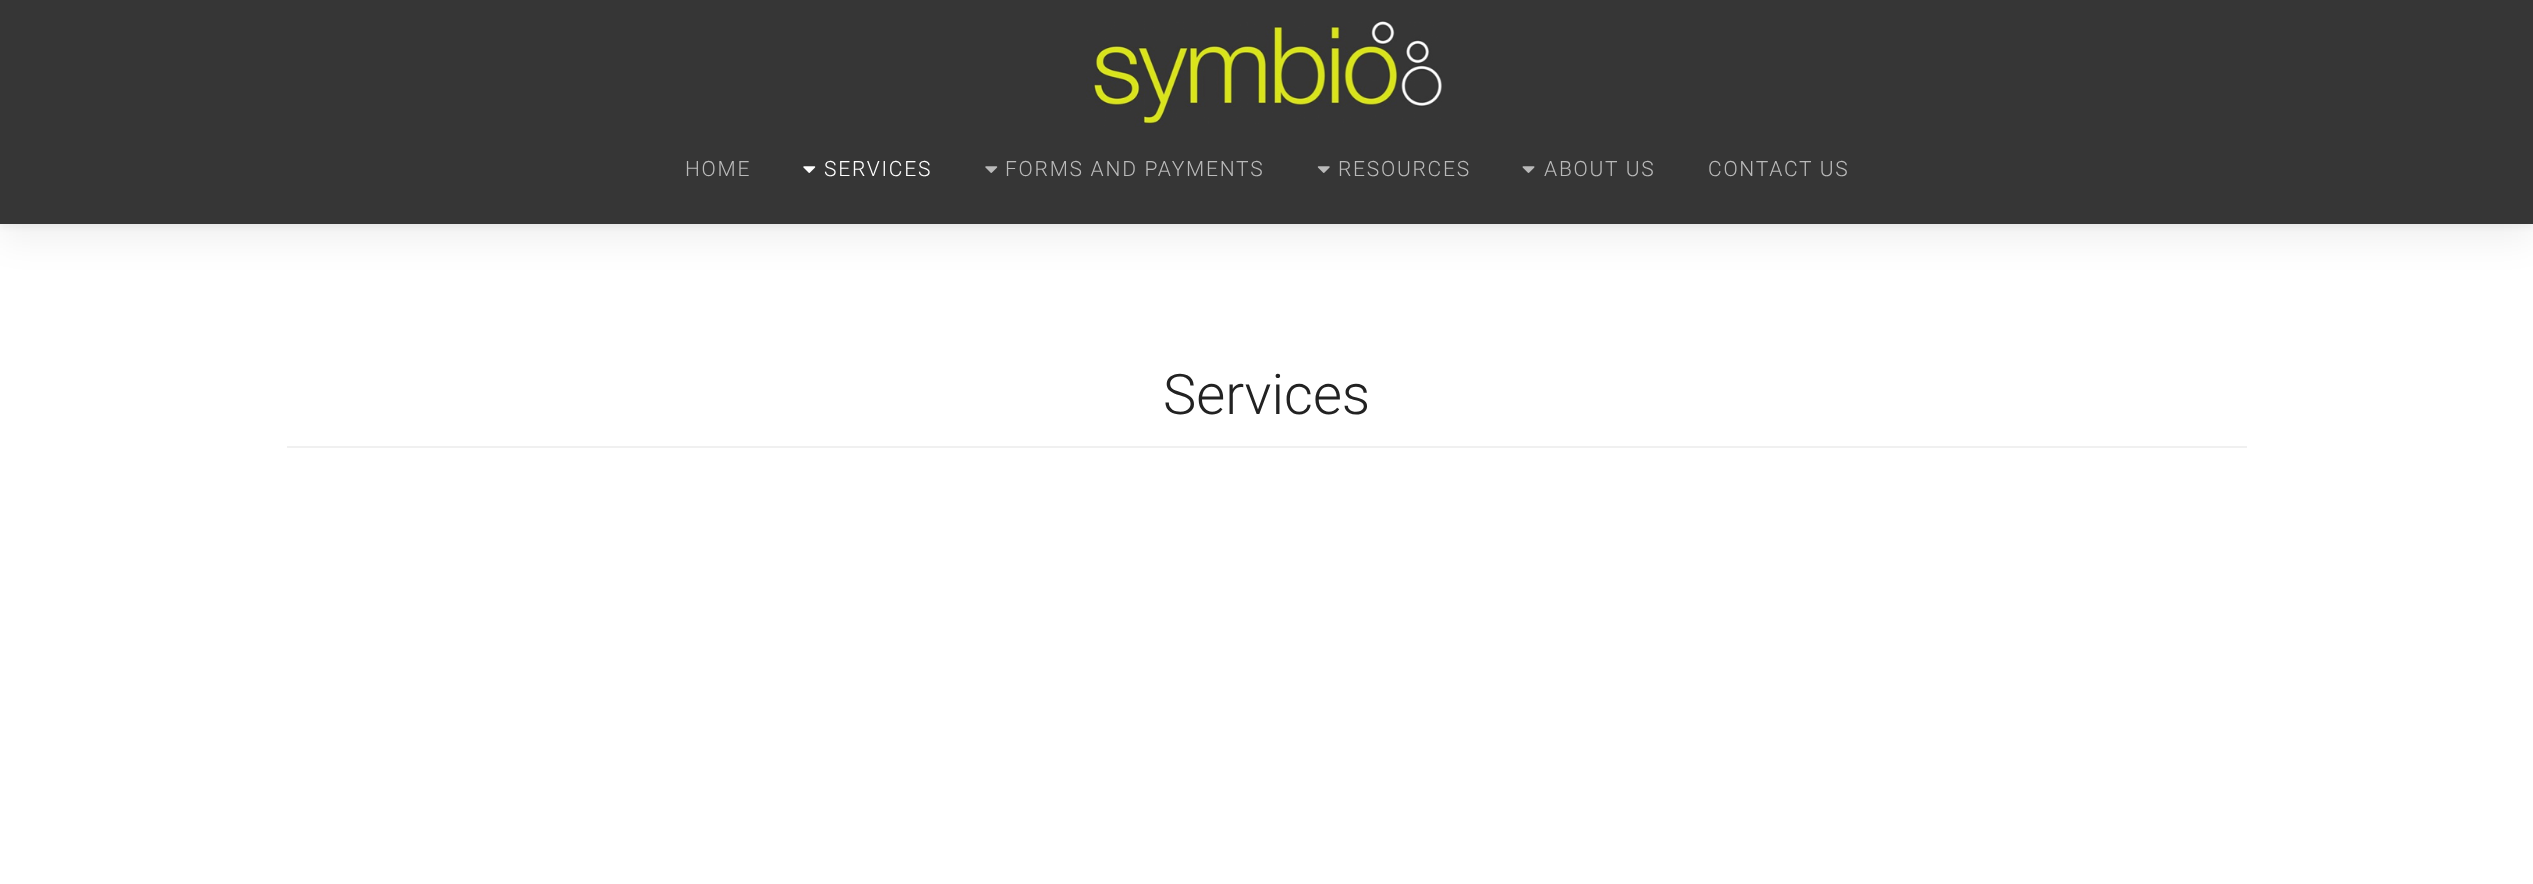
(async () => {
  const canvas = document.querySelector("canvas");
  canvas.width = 2533;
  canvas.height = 884;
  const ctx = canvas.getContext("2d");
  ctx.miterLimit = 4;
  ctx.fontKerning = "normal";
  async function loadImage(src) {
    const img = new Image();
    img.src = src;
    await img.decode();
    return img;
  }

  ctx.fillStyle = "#ffffff";
  ctx.fillRect(0, 0, 2533, 884);
  ctx.fillStyle = "rgba(0, 0, 0, 0.04)";
  ctx.filter = "blur(2.5px)";
  ctx.beginPath();
  ctx.rect(0, 4, 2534, 224);
  ctx.fill();
  ctx.filter = "none";
  ctx.fillStyle = "rgba(0, 0, 0, 0.06)";
  ctx.filter = "blur(17.5px)";
  ctx.beginPath();
  ctx.rect(0, 16, 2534, 224);
  ctx.fill();
  ctx.filter = "none";
  ctx.fillStyle = "#363636";
  ctx.fillRect(0, 0, 2533, 224);
  ctx.drawImage(await loadImage("img/1.png"), 1086, 20, 356, 107);
  ctx.drawImage(await loadImage("img/2.png"), 803, 166, 13, 7);
  ctx.drawImage(await loadImage("img/3.png"), 985, 166, 13, 7);
  ctx.drawImage(await loadImage("img/4.png"), 1317, 166, 13, 7);
  ctx.drawImage(await loadImage("img/5.png"), 1522, 166, 13, 7);
  ctx.fillStyle = "#f0f0f0";
  ctx.fillRect(287, 446, 1960, 2);
  ctx.letterSpacing = "1.75px";
  ctx.font = "300 21px Roboto";
  ctx.fillStyle = "#bababa";
  ctx.fillText("HOME", 685, 176);
  ctx.fillStyle = "#ffffff";
  ctx.fillText("SERVICES", 824, 176);
  ctx.fillStyle = "#bababa";
  for (const [text, x, y] of [
    ["FORMS AND PAYMENTS", 1005, 176],
    ["RESOURCES", 1338, 176],
    ["ABOUT US", 1544, 176],
    ["CONTACT US", 1708, 176],
  ]) {
    ctx.fillText(text, x, y);
  }
  ctx.letterSpacing = "0px";
  ctx.font = "300 56px Roboto";
  ctx.fillStyle = "#222222";
  ctx.fillText("Services", 1163, 414);
})();
